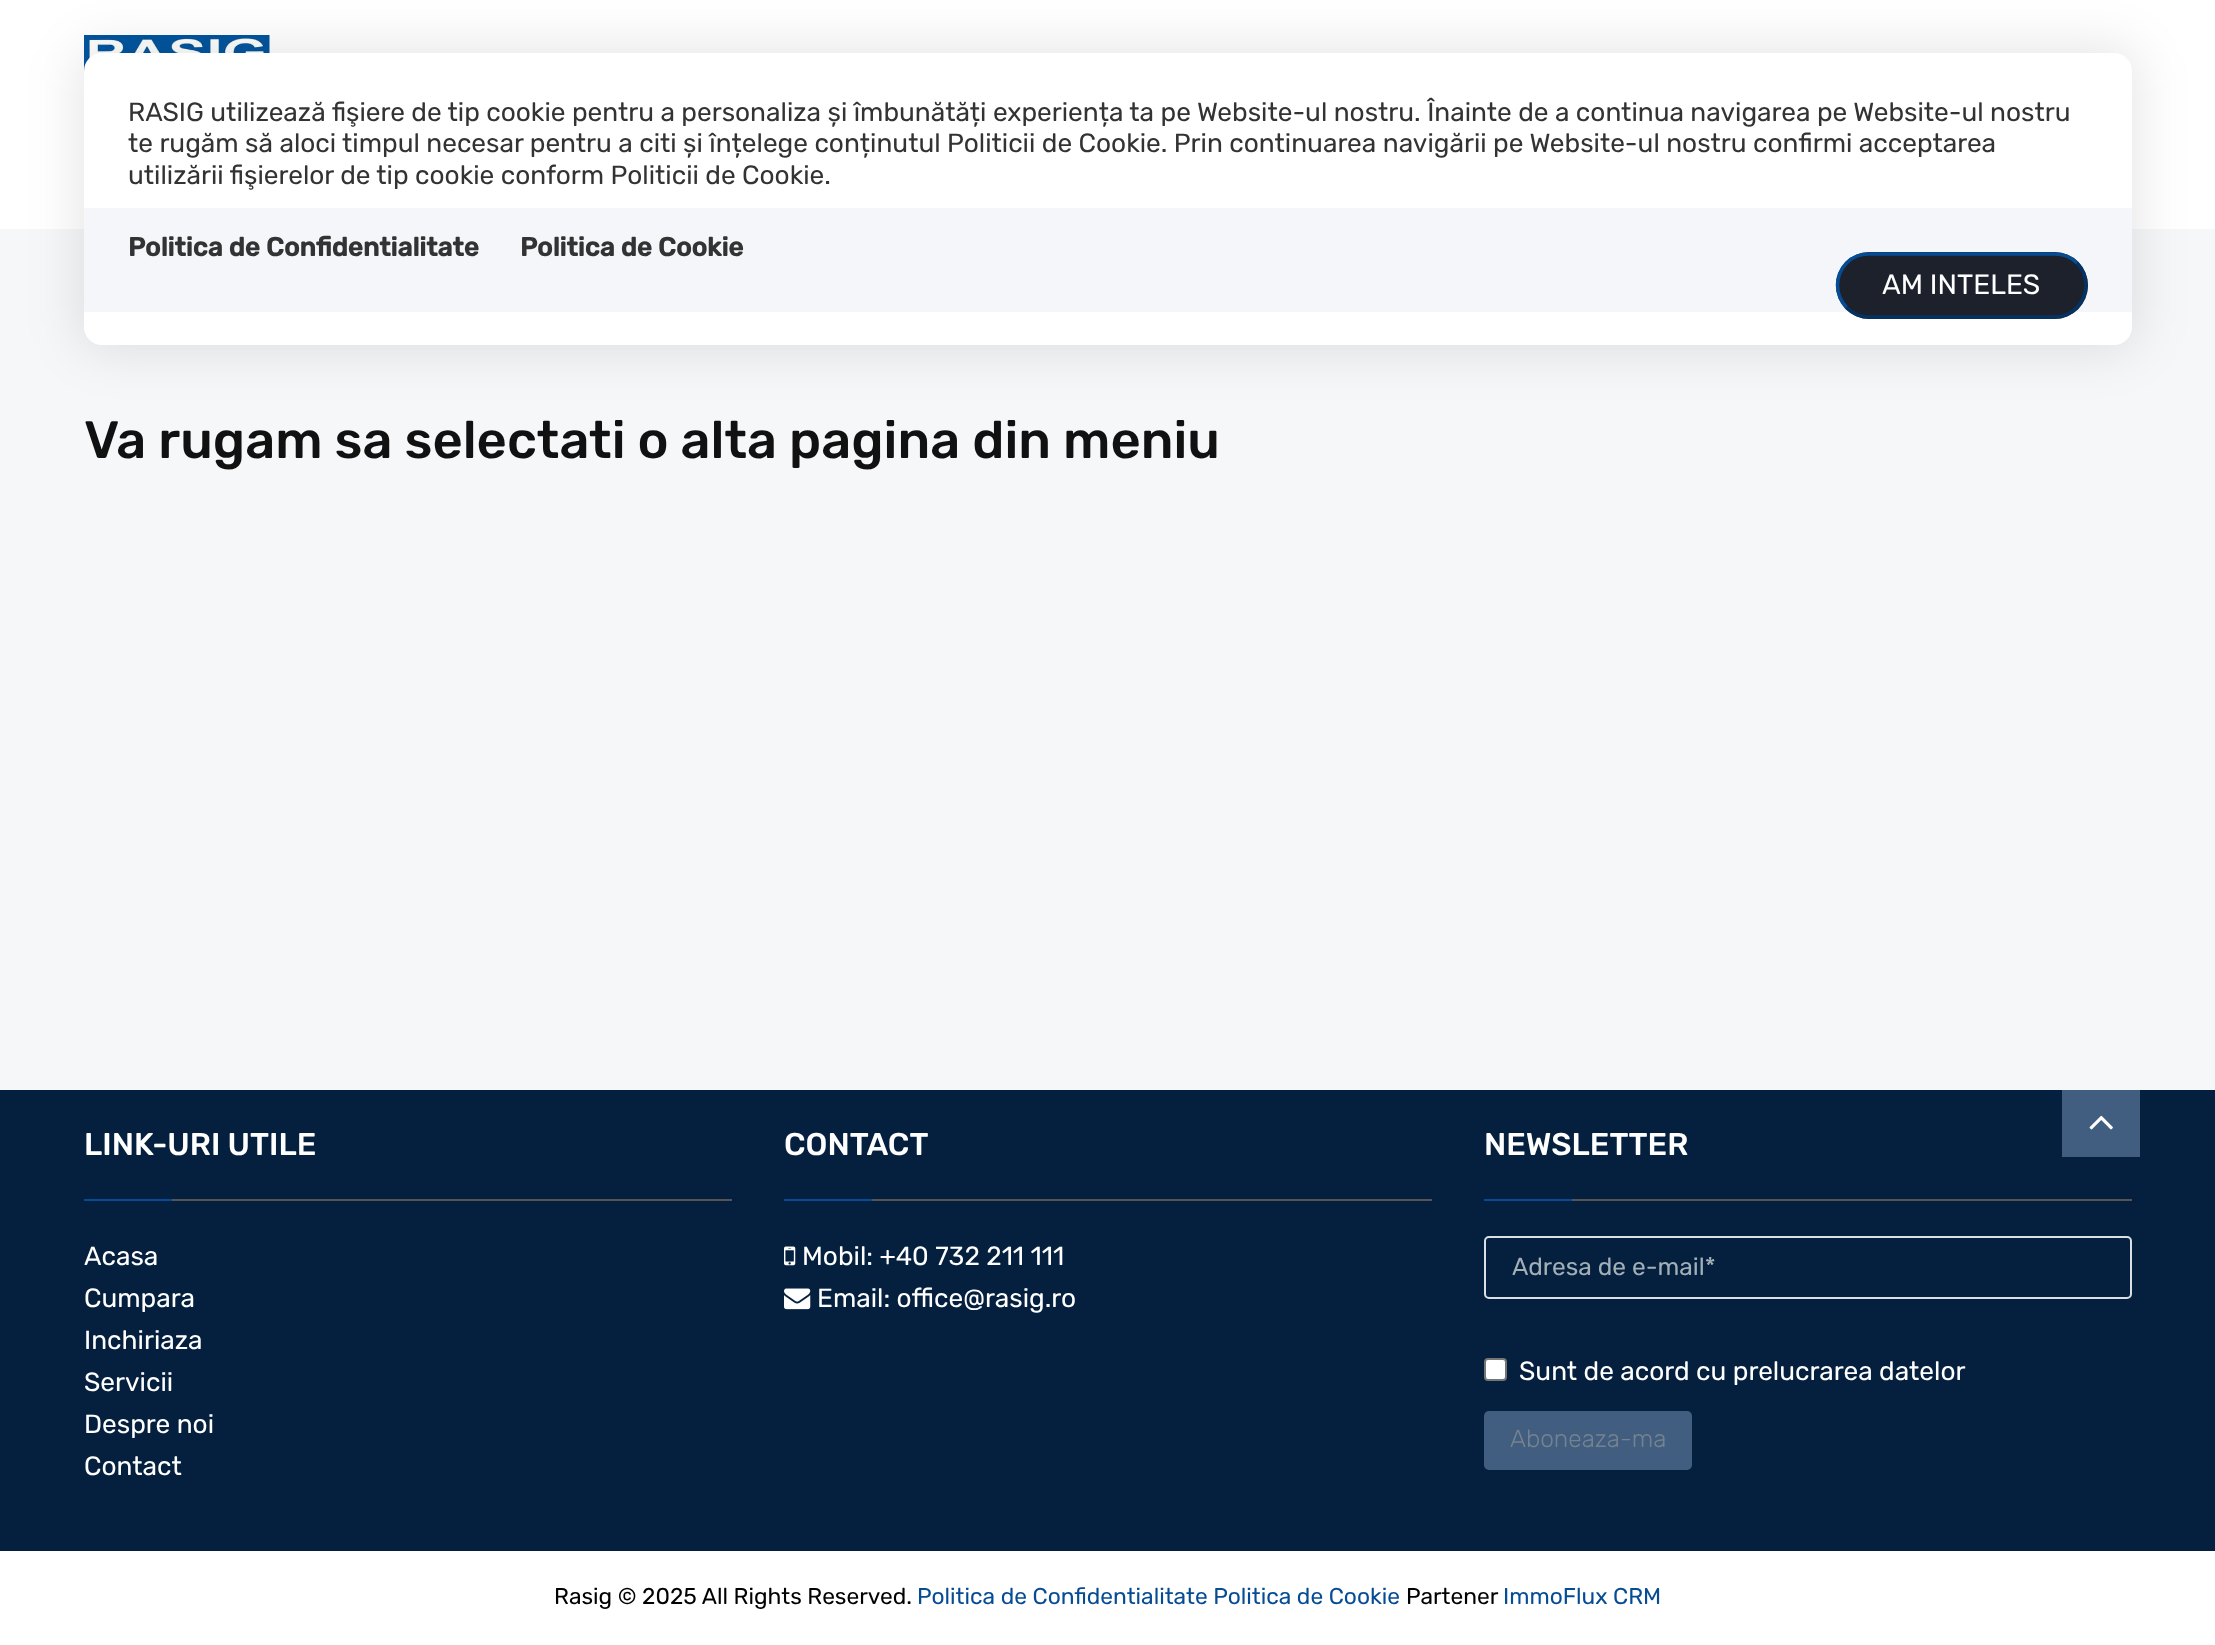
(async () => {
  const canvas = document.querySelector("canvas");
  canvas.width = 2215;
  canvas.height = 1645;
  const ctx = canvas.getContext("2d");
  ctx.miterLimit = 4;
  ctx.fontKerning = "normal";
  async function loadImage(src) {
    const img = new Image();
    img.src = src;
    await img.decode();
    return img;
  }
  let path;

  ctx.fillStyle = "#f6f7f9";
  ctx.fillRect(0, 0, 2215, 1645);
  ctx.fillStyle = "#ffffff";
  ctx.fillRect(0, 0, 2215, 229);
  ctx.drawImage(await loadImage("img/1.png"), 84, 35, 186, 36);
  ctx.fillStyle = "rgba(0, 0, 0, 0.1)";
  ctx.filter = "blur(26px)";
  ctx.beginPath();
  ctx.roundRect(79, 47, 2058, 303, 23);
  ctx.fill();
  ctx.filter = "none";
  ctx.fillStyle = "#ffffff";
  ctx.beginPath();
  ctx.roundRect(84, 53, 2048, 292, 18);
  ctx.fill();
  ctx.fillStyle = "#f5f6fa";
  ctx.fillRect(84, 208, 2048, 104);
  ctx.fillStyle = "#1c212c";
  ctx.beginPath();
  ctx.roundRect(1836, 252, 252, 67, 33.5);
  ctx.fill();
  path = new Path2D("M2077 263C2082.5 269 2086 277 2086 285C2086 293.5 2082.5 301.5 2077 307.5C2071 313.5 2063 317 2054.5 317H1869C1860.5 317 1852.5 313.5 1846.5 307.5");
  ctx.strokeStyle = "#043363";
  ctx.lineWidth = 3.5;
  ctx.stroke(path);
  path = new Path2D("M1846.5 307.5C1841 301.5 1837.5 293.5 1837.5 285C1837.5 277 1841 269 1846.5 263C1852.5 257 1860.5 254 1869 254H2054.5C2063 254 2071 257 2077 263");
  ctx.strokeStyle = "#064c95";
  ctx.stroke(path);
  ctx.fillStyle = "#04203e";
  ctx.fillRect(0, 1090, 2215, 461);
  ctx.fillStyle = "#415e81";
  ctx.fillRect(2062, 1090, 78, 67);
  ctx.drawImage(await loadImage("img/2.png"), 2089, 1115, 24, 15);
  for (const [x, y, w, h, color] of [
    [84, 1199, 88, 2, "#064c95"],
    [172, 1199, 560, 2, "#555555"],
    [784, 1199, 88, 2, "#064c95"],
    [872, 1199, 560, 2, "#555555"],
  ]) {
    ctx.fillStyle = color;
    ctx.fillRect(x, y, w, h);
  }
  ctx.drawImage(await loadImage("img/3.png"), 784, 1246, 12, 20);
  ctx.drawImage(await loadImage("img/4.png"), 784, 1288, 27, 22);
  ctx.fillStyle = "#064c95";
  ctx.fillRect(1484, 1199, 88, 2);
  ctx.fillStyle = "#555555";
  ctx.fillRect(1572, 1199, 560, 2);
  ctx.beginPath();
  ctx.roundRect(1485, 1237, 646, 61, 4);
  ctx.strokeStyle = "#d9e0e4";
  ctx.lineWidth = 2;
  ctx.stroke();
  ctx.fillStyle = "#ffffff";
  ctx.beginPath();
  ctx.roundRect(1485, 1359, 21, 21, 3);
  ctx.fill();
  ctx.strokeStyle = "#767676";
  ctx.stroke();
  ctx.fillStyle = "#415e81";
  ctx.beginPath();
  ctx.roundRect(1484, 1411, 208, 59, 5);
  ctx.fill();
  ctx.fillStyle = "#ffffff";
  ctx.fillRect(0, 1551, 2215, 94);
  ctx.font = "26.25px Rubik";
  ctx.fillStyle = "#333333";
  for (const [text, x, y] of [
    ["RASIG utilizează fişiere de tip cookie pentru a personaliza și îmbunătăți experiența ta pe Website-ul nostru. Înainte de a continua navigarea pe Website-ul nostru", 128, 121],
    ["te rugăm să aloci timpul necesar pentru a citi și înțelege conținutul Politicii de Cookie. Prin continuarea navigării pe Website-ul nostru confirmi acceptarea", 128, 152],
    ["utilizării fişierelor de tip cookie conform Politicii de Cookie.", 128, 184],
  ]) {
    ctx.fillText(text, x, y);
  }
  ctx.font = "bold 26.25px Rubik";
  ctx.fillText("Politica de Confidentialitate", 128, 256);
  ctx.fillText("Politica de Cookie", 520, 256);
  ctx.font = "28px Rubik";
  ctx.fillStyle = "#ffffff";
  ctx.fillText("AM INTELES", 1882, 294);
  ctx.font = "500 52.5px Rubik";
  ctx.fillStyle = "#111111";
  ctx.fillText("Va rugam sa selectati o alta pagina din meniu", 84, 458);
  ctx.font = "500 31.5px Rubik";
  ctx.fillStyle = "#ffffff";
  ctx.fillText("LINK-URI UTILE", 84, 1155);
  ctx.font = "26.25px Rubik";
  for (const [text, x, y] of [
    ["Acasa", 84, 1265],
    ["Cumpara", 84, 1307],
    ["Inchiriaza", 84, 1349],
    ["Servicii", 84, 1391],
    ["Despre noi", 84, 1433],
    ["Contact", 84, 1475],
  ]) {
    ctx.fillText(text, x, y);
  }
  ctx.font = "500 31.5px Rubik";
  ctx.fillText("CONTACT", 784, 1155);
  ctx.font = "26.25px Rubik";
  ctx.fillText("Mobil: +40 732 211 111", 802, 1265);
  ctx.fillText("Email: office@rasig.ro", 817, 1307);
  ctx.font = "500 31.5px Rubik";
  ctx.fillText("NEWSLETTER", 1484, 1155);
  ctx.font = "24.5px Rubik";
  ctx.fillStyle = "#a3afb7";
  ctx.fillText("Adresa de e-mail*", 1512, 1275);
  ctx.font = "26.25px Rubik";
  ctx.fillStyle = "#ffffff";
  ctx.fillText("Sunt de acord cu prelucrarea datelor", 1519, 1380);
  ctx.font = "300 24.5px Rubik";
  ctx.fillStyle = "#76838f";
  ctx.fillText("Aboneaza-ma", 1510, 1447);
  ctx.font = "22.75px Rubik";
  ctx.fillStyle = "#000000";
  ctx.fillText("Rasig © 2025 All Rights Reserved.", 554, 1604);
  ctx.fillStyle = "#064c95";
  ctx.fillText("Politica de Confidentialitate Politica de Cookie", 917, 1604);
  ctx.fillStyle = "#000000";
  ctx.fillText("Partener", 1406, 1604);
  ctx.fillStyle = "#064c95";
  ctx.fillText("ImmoFlux CRM", 1503, 1604);
})();
